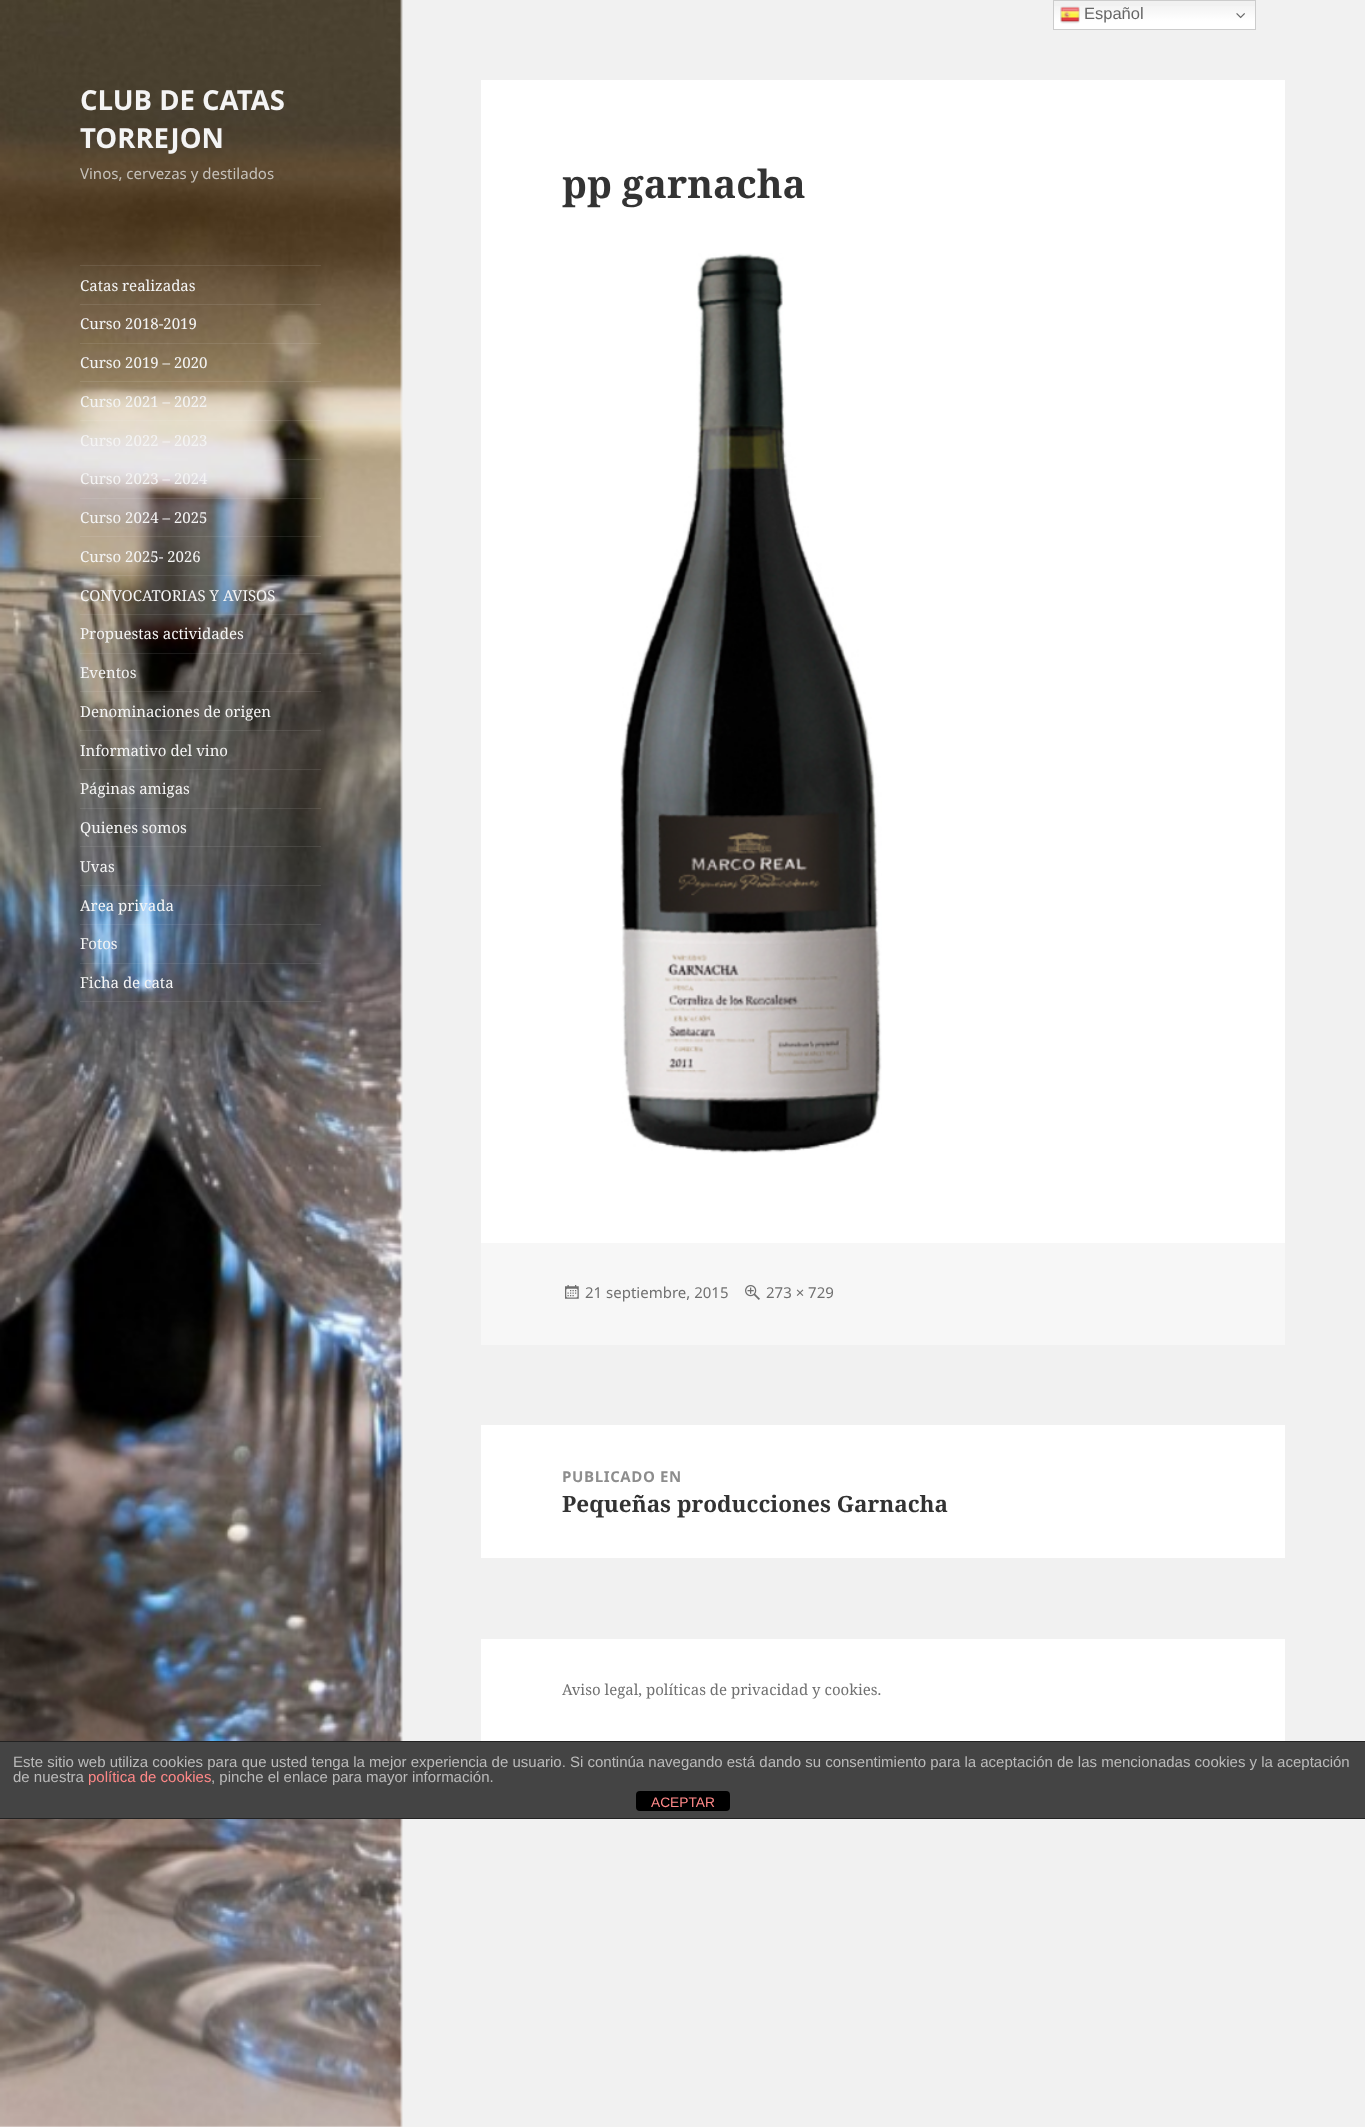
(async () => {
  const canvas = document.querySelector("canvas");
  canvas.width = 1365;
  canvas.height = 2127;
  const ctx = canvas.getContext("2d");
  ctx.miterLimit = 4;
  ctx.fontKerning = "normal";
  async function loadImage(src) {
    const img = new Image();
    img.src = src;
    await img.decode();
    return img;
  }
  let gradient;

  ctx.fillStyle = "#f1f1f1";
  ctx.fillRect(0, 0, 1365, 2127);
  ctx.fillStyle = "#ffffff";
  ctx.fillRect(0, 0, 401, 2127);
  ctx.drawImage(await loadImage("img/1.png"), 0, 0, 403, 2127);
  gradient = ctx.createLinearGradient(1154, 0, 1154, 30);
  gradient.addColorStop(0, "#efefef");
  gradient.addColorStop(0.7, "#ffffff");
  ctx.fillStyle = gradient;
  ctx.fillRect(1054, 6, 201, 23);
  ctx.strokeStyle = "#cccccc";
  ctx.strokeRect(1053.5, 0.5, 202, 29);
  ctx.drawImage(await loadImage("img/2.png"), 1060, 6, 20, 18);
  ctx.drawImage(await loadImage("img/3.png"), 1236, 13, 9, 6);
  for (const [x, y, w, h, color] of [
    [80, 265, 241, 1, "rgba(244, 244, 244, 0.1)"],
    [80, 1001, 241, 1, "rgba(244, 244, 244, 0.1)"],
    [80, 304, 241, 1, "rgba(244, 244, 244, 0.1)"],
    [80, 343, 241, 1, "rgba(244, 244, 244, 0.1)"],
    [80, 381, 241, 1, "rgba(244, 244, 244, 0.1)"],
    [80, 420, 241, 1, "rgba(244, 244, 244, 0.1)"],
    [269, 459, 52, 1, "rgba(244, 244, 244, 0.1)"],
    [80, 498, 241, 1, "rgba(244, 244, 244, 0.1)"],
    [80, 536, 241, 1, "rgba(244, 244, 244, 0.1)"],
    [80, 575, 241, 1, "rgba(244, 244, 244, 0.1)"],
    [80, 614, 241, 1, "rgba(244, 244, 244, 0.1)"],
    [80, 653, 241, 1, "rgba(244, 244, 244, 0.1)"],
    [80, 691, 241, 1, "rgba(244, 244, 244, 0.1)"],
    [80, 730, 241, 1, "rgba(244, 244, 244, 0.1)"],
    [80, 769, 241, 1, "rgba(244, 244, 244, 0.1)"],
    [80, 808, 241, 1, "rgba(244, 244, 244, 0.1)"],
    [80, 846, 241, 1, "rgba(244, 244, 244, 0.1)"],
    [80, 885, 241, 1, "rgba(244, 244, 244, 0.1)"],
    [80, 924, 241, 1, "rgba(244, 244, 244, 0.1)"],
    [80, 963, 241, 1, "rgba(244, 244, 244, 0.1)"],
    [481, 80, 804, 1163, "#ffffff"],
  ]) {
    ctx.fillStyle = color;
    ctx.fillRect(x, y, w, h);
  }
  ctx.drawImage(await loadImage("img/4.png"), 620, 253, 262, 901);
  ctx.fillStyle = "#f7f7f7";
  ctx.fillRect(481, 1243, 804, 102);
  ctx.drawImage(await loadImage("img/5.png"), 565, 1285, 14, 14);
  ctx.drawImage(await loadImage("img/6.png"), 745, 1285, 15, 15);
  for (const [x, y, w, h, color] of [
    [481, 1425, 804, 133, "#ffffff"],
    [481, 1639, 804, 102, "#ffffff"],
    [0, 1742, 1365, 76, "#444444"],
    [0, 1741, 1365, 1, "#222222"],
    [0, 1818, 1365, 1, "#222222"],
  ]) {
    ctx.fillStyle = color;
    ctx.fillRect(x, y, w, h);
  }
  ctx.fillStyle = "#000000";
  ctx.beginPath();
  ctx.roundRect(636, 1791, 94, 20, 4);
  ctx.fill();
  ctx.font = "16.5px Liberation Sans";
  ctx.fillStyle = "#666666";
  ctx.fillText("Español", 1084, 19);
  ctx.font = "bold 27.5px Noto Sans";
  ctx.fillStyle = "#f4f4f4";
  ctx.fillText("CLUB DE CATAS", 80, 110);
  ctx.fillText("TORREJON", 80, 148);
  ctx.font = "15px Noto Sans";
  ctx.fillStyle = "#c6c1ba";
  ctx.fillText("Vinos, cervezas y destilados", 80, 179);
  ctx.font = "15px Noto Serif";
  ctx.fillStyle = "#f4f4f4";
  for (const [text, x, y] of [
    ["Catas realizadas", 80, 291],
    ["Curso 2018-2019", 80, 329],
    ["Curso 2019 – 2020", 80, 368],
    ["Curso 2021 – 2022", 80, 407],
    ["Curso 2022 – 2023", 80, 446],
    ["Curso 2023 – 2024", 80, 484],
    ["Curso 2024 – 2025", 80, 523],
    ["Curso 2025- 2026", 80, 562],
    ["CONVOCATORIAS Y AVISOS", 80, 601],
    ["Propuestas actividades", 80, 639],
    ["Eventos", 80, 678],
    ["Denominaciones de origen", 80, 717],
    ["Informativo del vino", 80, 756],
    ["Páginas amigas", 80, 794],
    ["Quienes somos", 80, 833],
    ["Uvas", 80, 872],
    ["Area privada", 80, 911],
    ["Fotos", 80, 949],
    ["Ficha de cata", 80, 988],
  ]) {
    ctx.fillText(text, x, y);
  }
  ctx.font = "bold 38.75px Noto Serif";
  ctx.fillStyle = "#333333";
  ctx.fillText("pp garnacha", 562, 198);
  ctx.font = "15px Noto Sans";
  ctx.fillStyle = "#707070";
  ctx.fillText("21 septiembre, 2015", 585, 1298);
  ctx.fillText("273 × 729", 766, 1298);
  ctx.letterSpacing = "0.6px";
  ctx.font = "bold 15px Noto Sans";
  ctx.fillStyle = "#8d8d8d";
  ctx.fillText("PUBLICADO EN", 562, 1482);
  ctx.letterSpacing = "0px";
  ctx.font = "bold 22.5px Noto Serif";
  ctx.fillStyle = "#333333";
  ctx.fillText("Pequeñas producciones Garnacha", 562, 1512);
  ctx.font = "15px Noto Serif";
  ctx.fillStyle = "#707070";
  ctx.fillText("Aviso legal, políticas de privacidad y cookies.", 562, 1695);
  ctx.font = "15px Liberation Sans";
  ctx.fillStyle = "#bbbbbb";
  ctx.fillText("Este sitio web utiliza cookies para que usted tenga la mejor experiencia de usuario. Si continúa navegando está dando su consentimiento para la aceptación de las mencionadas cookies y la aceptación", 13, 1767);
  ctx.fillText("de nuestra", 13, 1782);
  ctx.fillStyle = "#ff8888";
  ctx.fillText("política de cookies", 88, 1782);
  ctx.fillStyle = "#bbbbbb";
  ctx.fillText(", pinche el enlace para mayor información.", 211, 1782);
  ctx.font = "13.75px Liberation Sans";
  ctx.fillStyle = "#ff8888";
  ctx.fillText("ACEPTAR", 651, 1807);
})();
